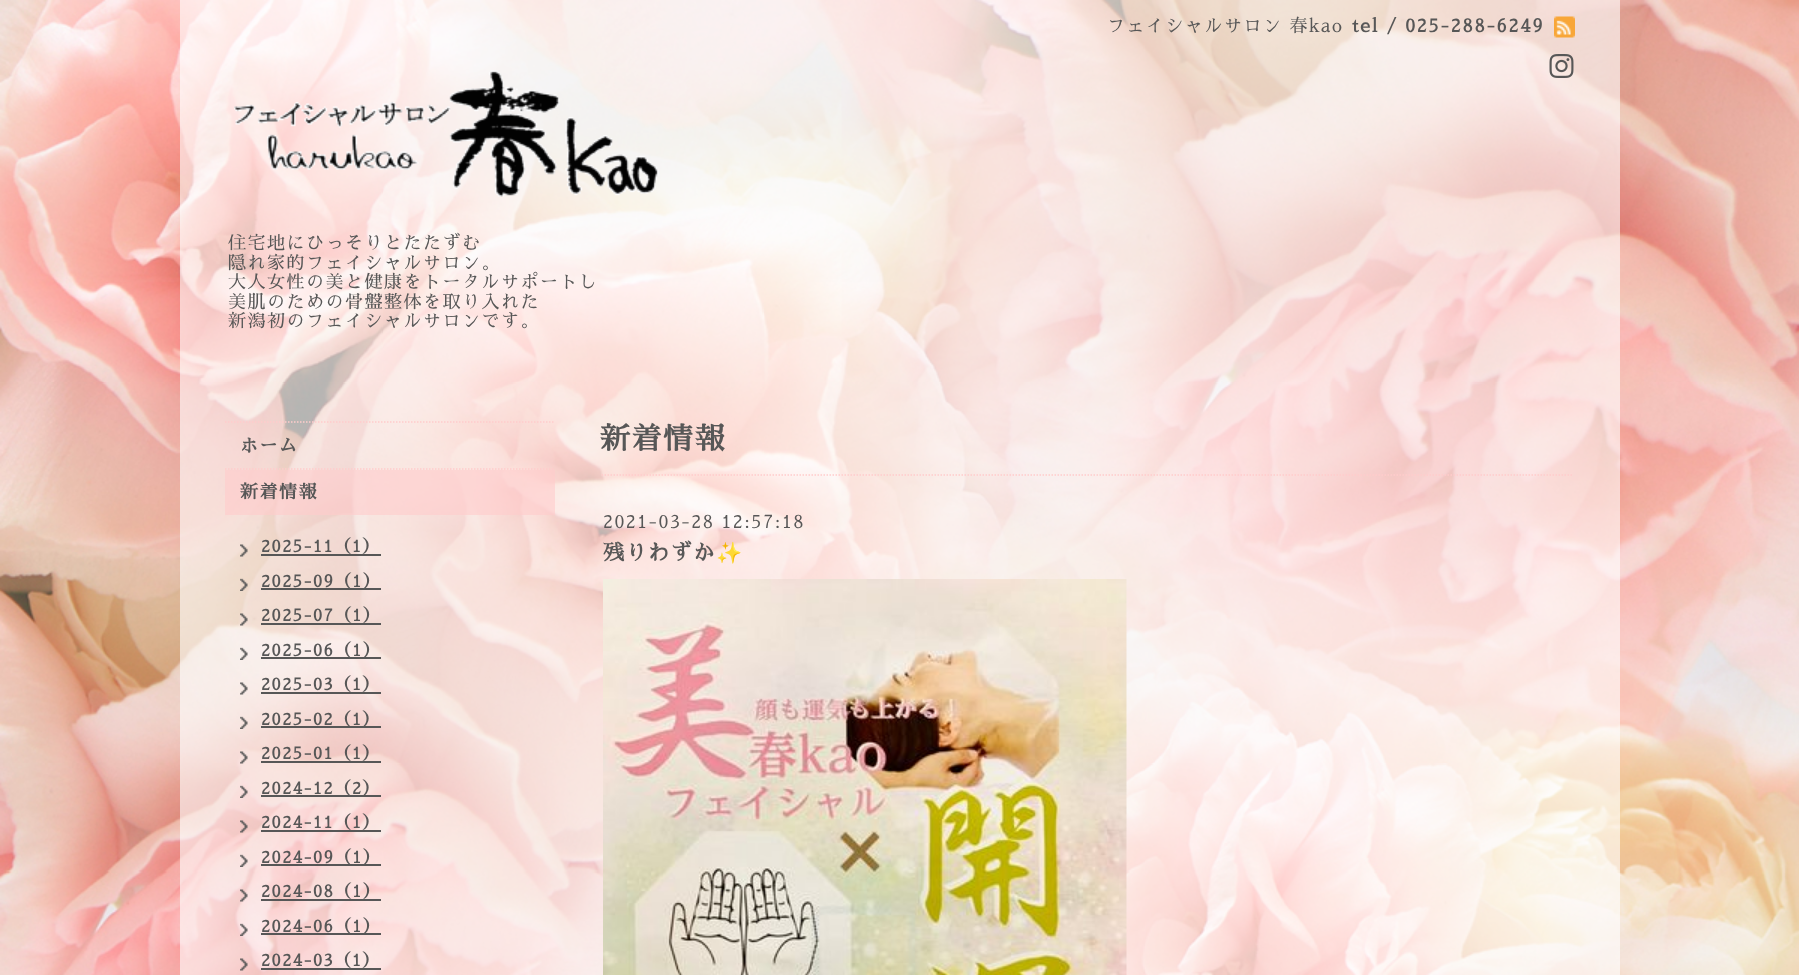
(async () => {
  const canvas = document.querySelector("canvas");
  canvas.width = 1799;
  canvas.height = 975;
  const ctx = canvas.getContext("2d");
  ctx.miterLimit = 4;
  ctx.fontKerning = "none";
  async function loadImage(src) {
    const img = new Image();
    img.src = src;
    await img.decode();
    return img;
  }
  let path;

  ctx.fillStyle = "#ffffff";
  ctx.fillRect(0, 0, 1799, 975);
  ctx.drawImage(await loadImage("img/1.png"), 0, 0, 1799, 975);
  ctx.fillStyle = "rgba(255, 255, 255, 0.6)";
  ctx.fillRect(180, 0, 1440, 975);
  ctx.drawImage(await loadImage("img/2.png"), 1554, 16, 21, 22);
  ctx.drawImage(await loadImage("img/3.png"), 1549, 54, 25, 24);
  ctx.drawImage(await loadImage("img/4.png"), 234, 70, 425, 127);
  path = new Path2D("M225 422H555");
  ctx.strokeStyle = "#ffcccc";
  ctx.lineWidth = 1.5;
  ctx.setLineDash([1.5, 1.5]);
  ctx.stroke(path);
  path = new Path2D("M225 469H555");
  ctx.stroke(path);
  ctx.fillStyle = "rgba(255, 204, 204, 0.6)";
  ctx.fillRect(225, 470, 330, 45);
  ctx.drawImage(await loadImage("img/5.png"), 240, 544, 8, 13);
  ctx.fillStyle = "#575757";
  ctx.fillRect(261, 554, 120, 2);
  ctx.drawImage(await loadImage("img/6.png"), 240, 578, 8, 13);
  ctx.fillRect(261, 588, 120, 2);
  ctx.drawImage(await loadImage("img/7.png"), 240, 613, 8, 13);
  ctx.fillRect(261, 623, 120, 2);
  ctx.drawImage(await loadImage("img/8.png"), 240, 647, 8, 13);
  ctx.fillRect(261, 657, 120, 2);
  ctx.drawImage(await loadImage("img/9.png"), 240, 682, 8, 13);
  ctx.fillRect(261, 692, 120, 2);
  ctx.drawImage(await loadImage("img/10.png"), 240, 716, 8, 13);
  ctx.fillRect(261, 726, 120, 2);
  ctx.drawImage(await loadImage("img/11.png"), 240, 751, 8, 13);
  ctx.fillRect(261, 761, 120, 2);
  ctx.drawImage(await loadImage("img/12.png"), 240, 785, 8, 13);
  ctx.fillRect(261, 795, 120, 2);
  ctx.drawImage(await loadImage("img/13.png"), 240, 820, 8, 13);
  ctx.fillRect(261, 830, 120, 2);
  ctx.drawImage(await loadImage("img/14.png"), 240, 854, 8, 13);
  ctx.fillRect(261, 864, 120, 2);
  ctx.drawImage(await loadImage("img/15.png"), 240, 889, 8, 13);
  ctx.fillRect(261, 899, 120, 2);
  ctx.drawImage(await loadImage("img/16.png"), 240, 923, 8, 13);
  ctx.fillRect(261, 933, 120, 2);
  ctx.drawImage(await loadImage("img/17.png"), 240, 958, 8, 13);
  ctx.fillRect(261, 968, 120, 2);
  path = new Path2D("M601.5 475H1573.5");
  ctx.stroke(path);
  ctx.drawImage(await loadImage("img/18.png"), 603, 579, 524, 396);
  ctx.letterSpacing = "1.5px";
  ctx.font = "18px Sawarabi Mincho";
  ctx.fillText("フェイシャルサロン 春kao", 1107, 32);
  ctx.letterSpacing = "1.75px";
  ctx.font = "bold 18px Sawarabi Mincho";
  ctx.fillText("tel / 025-288-6249", 1352, 32);
  ctx.letterSpacing = "1.5px";
  ctx.font = "18px Sawarabi Mincho";
  for (const [text, x, y] of [
    ["住宅地にひっそりとたたずむ", 228, 249],
    ["隠れ家的フェイシャルサロン。", 228, 269],
    ["大人女性の美と健康をトータルサポートし", 228, 288],
    ["美肌のための骨盤整体を取り入れた", 228, 308],
    ["新潟初のフェイシャルサロンです。", 228, 327],
  ]) {
    ctx.fillText(text, x, y);
  }
  ctx.font = "bold 18px Sawarabi Mincho";
  ctx.fillText("ホーム", 240, 452);
  ctx.fillText("新着情報", 240, 498);
  ctx.font = "bold 16.5px Sawarabi Mincho";
  for (const [text, x, y] of [
    ["2025-11（1）", 261, 552],
    ["2025-09（1）", 261, 587],
    ["2025-07（1）", 261, 621],
    ["2025-06（1）", 261, 656],
    ["2025-03（1）", 261, 690],
    ["2025-02（1）", 261, 725],
    ["2025-01（1）", 261, 759],
    ["2024-12（2）", 261, 794],
    ["2024-11（1）", 261, 828],
    ["2024-09（1）", 261, 863],
    ["2024-08（1）", 261, 897],
    ["2024-06（1）", 261, 932],
    ["2024-03（1）", 261, 966],
  ]) {
    ctx.fillText(text, x, y);
  }
  ctx.font = "bold 30px Sawarabi Mincho";
  ctx.fillText("新着情報", 600, 449);
  ctx.font = "18px Sawarabi Mincho";
  ctx.fillText("2021-03-28 12:57:18", 603, 528);
  ctx.font = "bold 21px Sawarabi Mincho";
  ctx.fillText("残りわずか", 603, 560);
  ctx.font = "bold 21px Noto Color Emoji";
  ctx.fillText("✨", 716, 560);
})();
